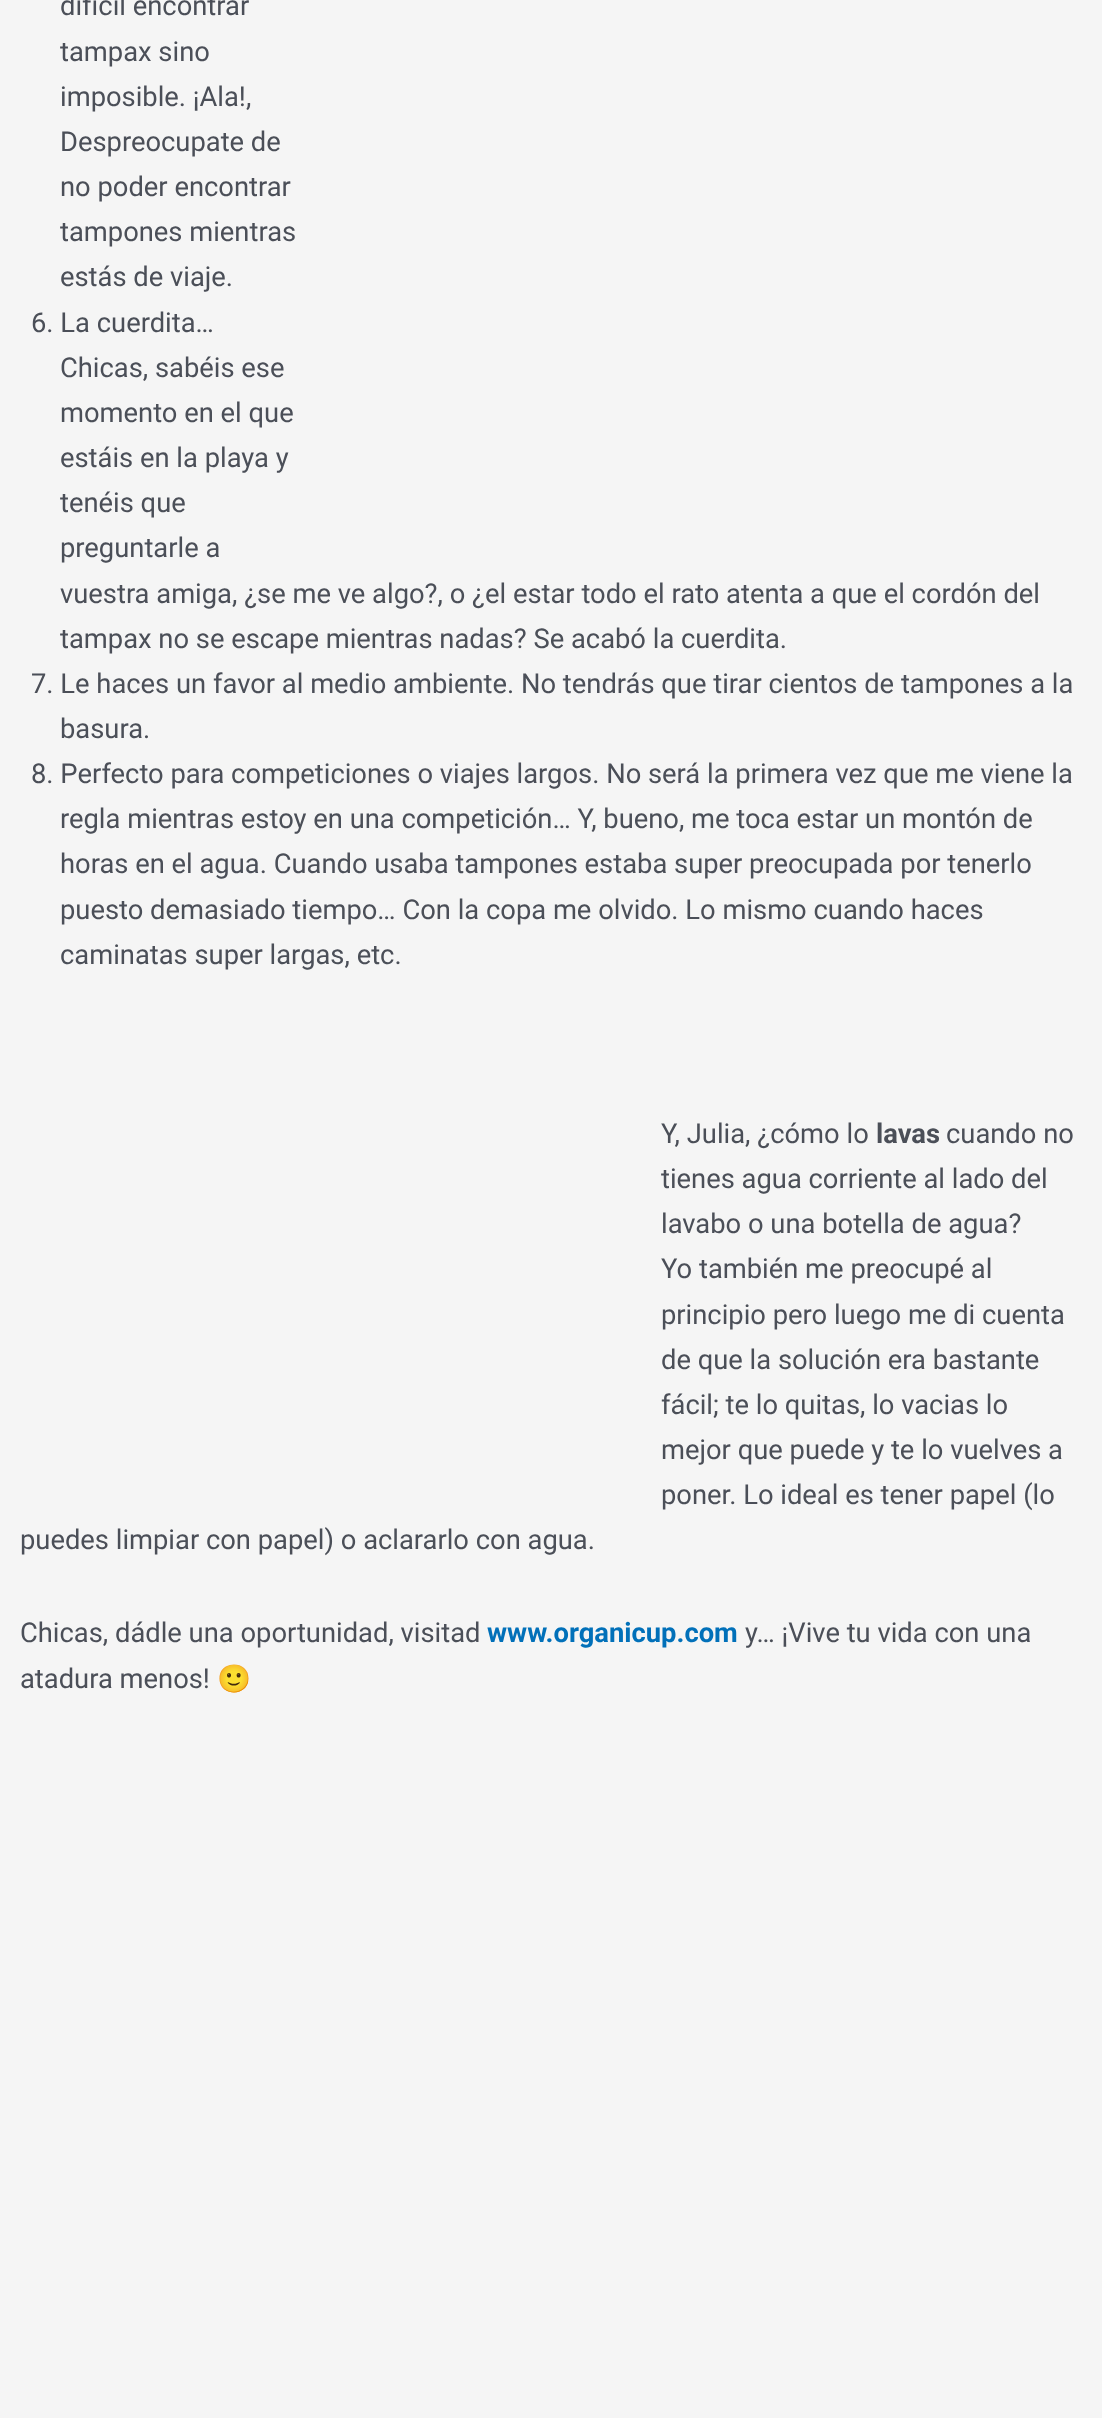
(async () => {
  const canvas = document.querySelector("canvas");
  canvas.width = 1102;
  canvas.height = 2418;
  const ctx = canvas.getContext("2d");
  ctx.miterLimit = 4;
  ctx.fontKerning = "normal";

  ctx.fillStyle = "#f5f5f5";
  ctx.fillRect(0, 0, 1102, 2418);
  ctx.font = "27.35px Roboto";
  ctx.fillStyle = "#4b4f58";
  for (const [text, x, y] of [
    ["difícil encontrar", 60, 15],
    ["tampax sino", 60, 61],
    ["imposible. ¡Ala!,", 60, 106],
    ["Despreocupate de", 60, 151],
    ["no poder encontrar", 60, 196],
    ["tampones mientras", 60, 241],
    ["estás de viaje.", 60, 286],
    ["6. La cuerdita…", 31, 332],
    ["Chicas, sabéis ese", 60, 377],
    ["momento en el que", 60, 422],
    ["estáis en la playa y", 60, 467],
    ["tenéis que", 60, 512],
    ["preguntarle a", 60, 557],
    ["vuestra amiga, ¿se me ve algo?, o ¿el estar todo el rato atenta a que el cordón del", 60, 603],
    ["tampax no se escape mientras nadas? Se acabó la cuerdita.", 60, 648],
    ["7. Le haces un favor al medio ambiente. No tendrás que tirar cientos de tampones a la", 31, 693],
    ["basura.", 60, 738],
    ["8. Perfecto para competiciones o viajes largos. No será la primera vez que me viene la", 31, 783],
    ["regla mientras estoy en una competición… Y, bueno, me toca estar un montón de", 60, 828],
    ["horas en el agua. Cuando usaba tampones estaba super preocupada por tenerlo", 60, 873],
    ["puesto demasiado tiempo… Con la copa me olvido. Lo mismo cuando haces", 60, 919],
    ["caminatas super largas, etc.", 60, 964],
    ["Y, Julia, ¿cómo lo", 661, 1143],
  ]) {
    ctx.fillText(text, x, y);
  }
  ctx.font = "bold 27.35px Roboto";
  ctx.fillText("lavas", 876, 1143);
  ctx.font = "27.35px Roboto";
  for (const [text, x, y] of [
    ["cuando no", 946, 1143],
    ["tienes agua corriente al lado del", 661, 1188],
    ["lavabo o una botella de agua?", 661, 1233],
    ["Yo también me preocupé al", 661, 1278],
    ["principio pero luego me di cuenta", 661, 1324],
    ["de que la solución era bastante", 661, 1369],
    ["fácil; te lo quitas, lo vacias lo", 661, 1414],
    ["mejor que puede y te lo vuelves a", 661, 1459],
    ["poner. Lo ideal es tener papel (lo", 661, 1504],
    ["puedes limpiar con papel) o aclararlo con agua.", 20, 1549],
    ["Chicas, dádle una oportunidad, visitad", 20, 1642],
  ]) {
    ctx.fillText(text, x, y);
  }
  ctx.font = "bold 27.35px Roboto";
  ctx.fillStyle = "#0170b9";
  ctx.fillText("www.organicup.com", 487, 1642);
  ctx.font = "27.35px Roboto";
  ctx.fillStyle = "#4b4f58";
  ctx.fillText("y… ¡Vive tu vida con una", 745, 1642);
  ctx.fillText("atadura menos!", 20, 1688);
  ctx.font = "27.35px Noto Color Emoji";
  ctx.fillText("🙂", 217, 1688);
})();
